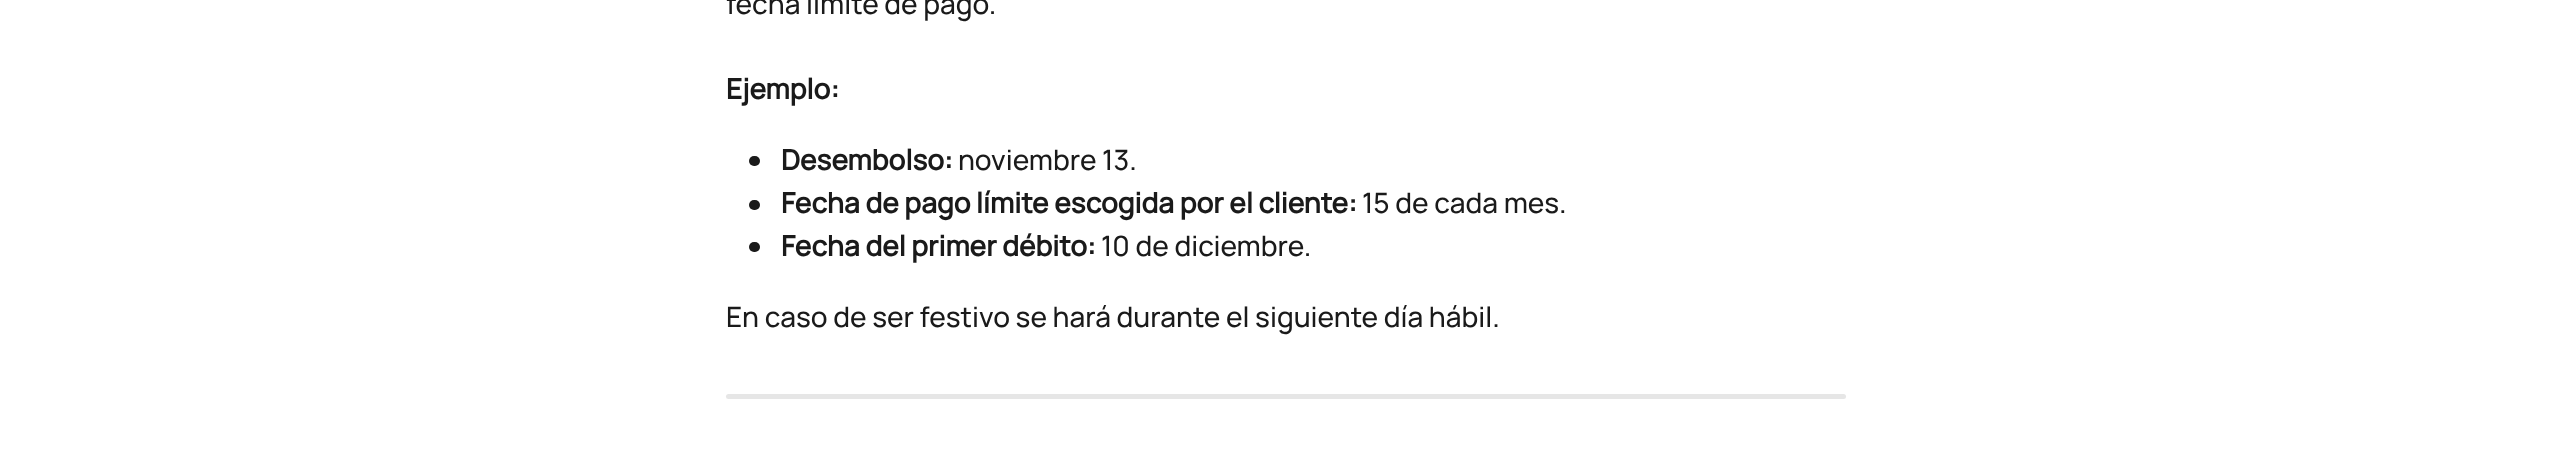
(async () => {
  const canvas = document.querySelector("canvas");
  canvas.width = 2571;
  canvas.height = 460;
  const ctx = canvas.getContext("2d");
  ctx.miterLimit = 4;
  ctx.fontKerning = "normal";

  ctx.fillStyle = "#ffffff";
  ctx.fillRect(0, 0, 2571, 460);
  ctx.fillStyle = "#1a1a1a";
  ctx.beginPath();
  ctx.roundRect(749, 156, 11, 10, 5);
  ctx.fill();
  ctx.beginPath();
  ctx.roundRect(749, 200, 11, 10, 5);
  ctx.fill();
  ctx.beginPath();
  ctx.roundRect(749, 242, 11, 10, 5);
  ctx.fill();
  ctx.fillStyle = "#e6e6e6";
  ctx.beginPath();
  ctx.roundRect(726, 394, 1120, 5, 2.5);
  ctx.fill();
  ctx.font = "500 28px Manrope";
  ctx.fillStyle = "#1a1a1a";
  ctx.fillText("fecha límite de pago.", 726, 14);
  ctx.font = "bold 28px Manrope";
  ctx.fillText("Ejemplo:", 726, 99);
  ctx.fillText("Desembolso:", 781, 170);
  ctx.font = "500 28px Manrope";
  ctx.fillText("noviembre 13.", 958, 170);
  ctx.font = "bold 28px Manrope";
  ctx.fillText("Fecha de pago límite escogida por el cliente:", 781, 213);
  ctx.font = "500 28px Manrope";
  ctx.fillText("15 de cada mes.", 1362, 213);
  ctx.font = "bold 28px Manrope";
  ctx.fillText("Fecha del primer débito:", 781, 256);
  ctx.font = "500 28px Manrope";
  ctx.fillText("10 de diciembre.", 1101, 256);
  ctx.fillText("En caso de ser festivo se hará durante el siguiente día hábil.", 726, 327);
})();
